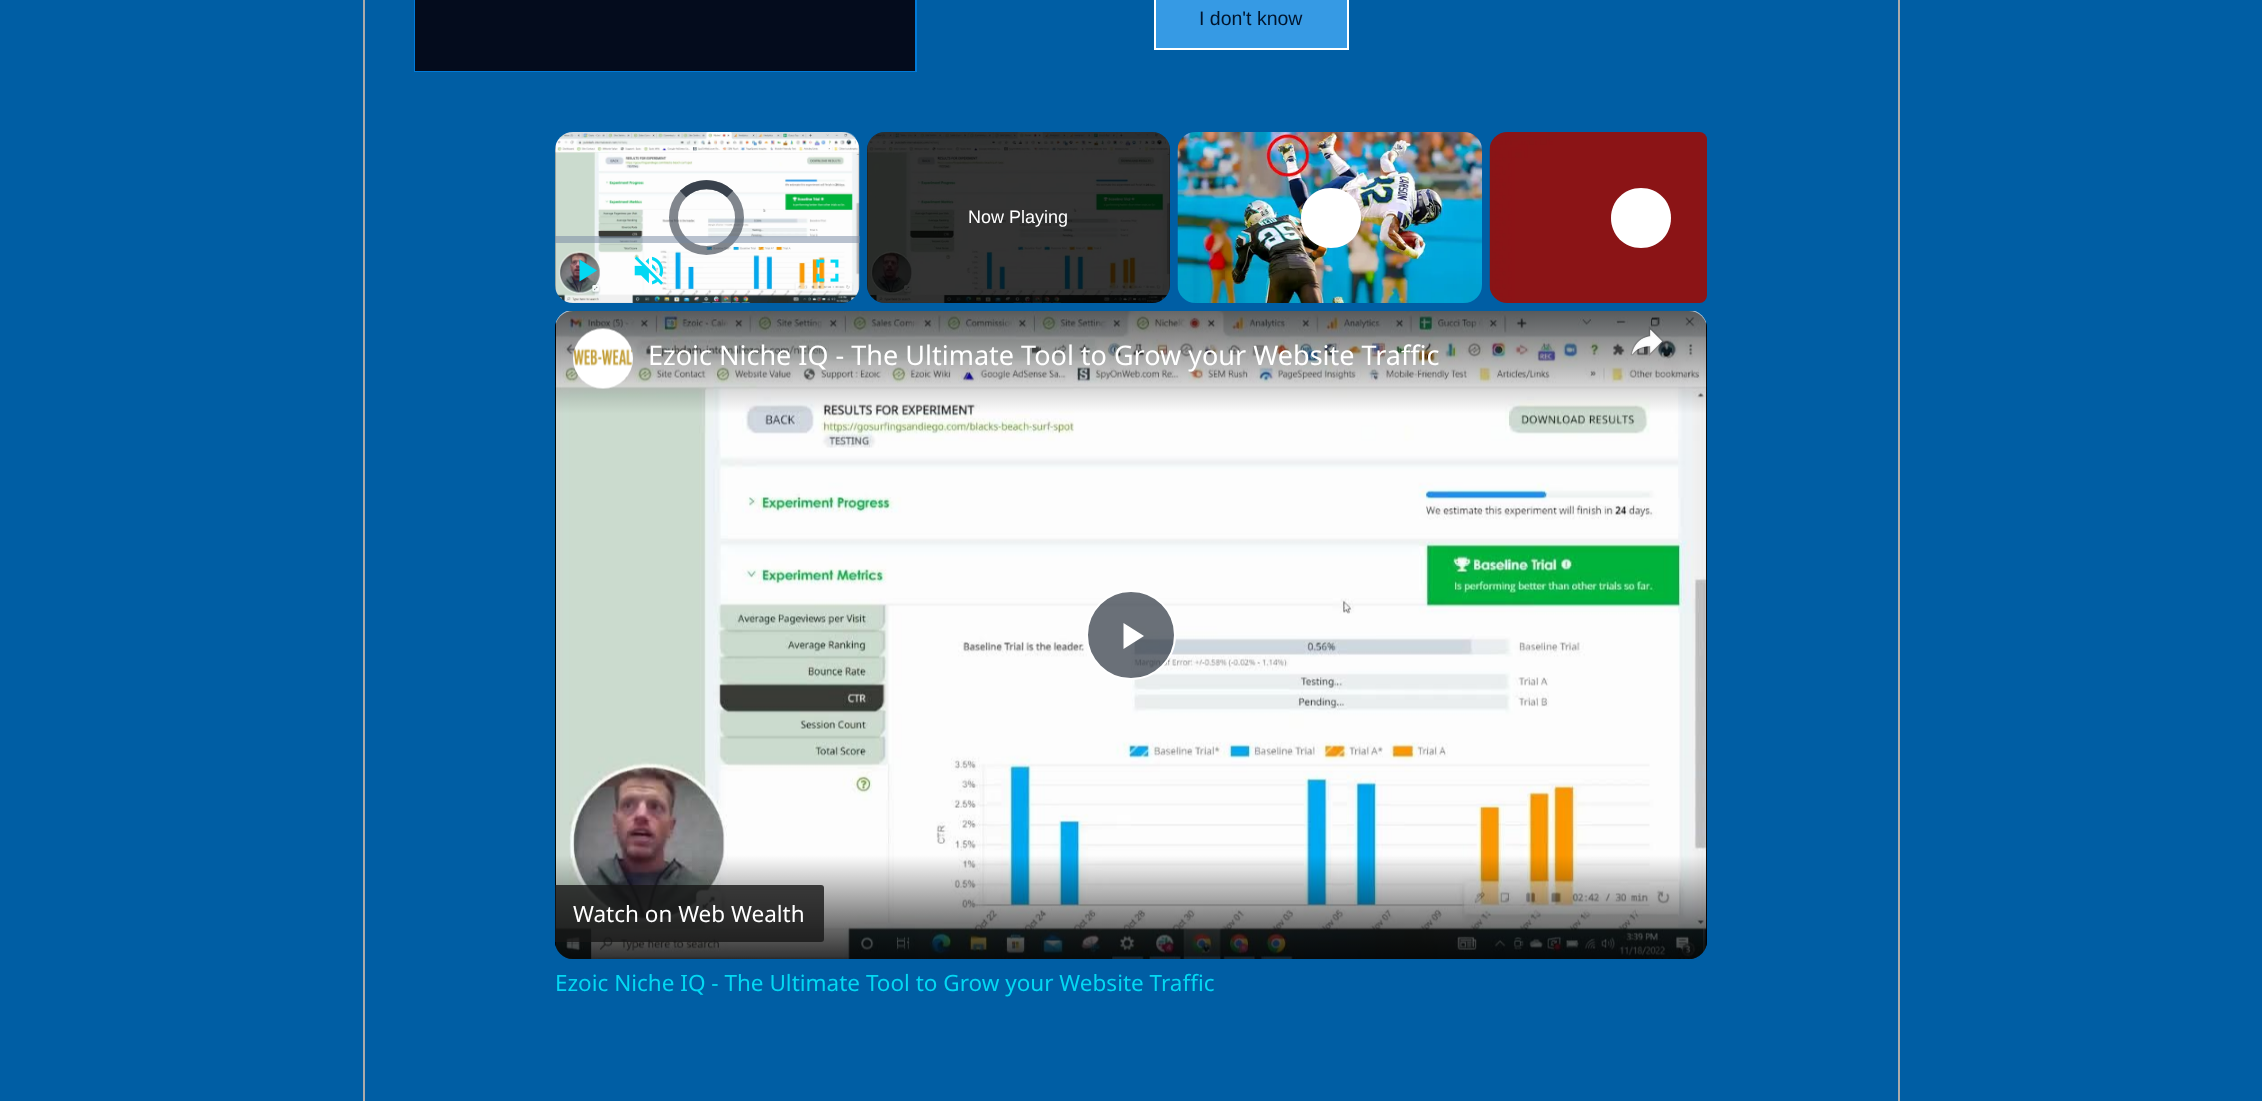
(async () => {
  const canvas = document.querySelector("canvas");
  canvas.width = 2262;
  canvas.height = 1101;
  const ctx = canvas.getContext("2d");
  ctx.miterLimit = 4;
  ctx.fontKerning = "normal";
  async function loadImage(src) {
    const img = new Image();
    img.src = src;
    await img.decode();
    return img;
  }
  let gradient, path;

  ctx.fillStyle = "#005ea4";
  ctx.fillRect(0, 0, 2262, 1101);
  ctx.fillStyle = "#aaaaaa";
  ctx.fillRect(1898, 0, 2, 1101);
  ctx.fillRect(363, 0, 2, 1101);
  ctx.strokeStyle = "#007bd9";
  ctx.lineWidth = 2;
  ctx.strokeRect(415, -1, 501, 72);
  ctx.fillStyle = "#040c1d";
  ctx.fillRect(415, 0, 500, 71);
  ctx.fillStyle = "#369ae4";
  ctx.beginPath();
  ctx.rect(1155, -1, 193, 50);
  ctx.fill();
  ctx.strokeStyle = "#ffffff";
  ctx.stroke();
  ctx.fillStyle = "#669fc9";
  ctx.beginPath();
  ctx.arc(845, 144, 12, 0, Math.PI * 2);
  ctx.fill();
  ctx.drawImage(await loadImage("img/1.png"), 555, 132, 305, 171);
  ctx.beginPath();
  ctx.arc(706.5, 217.5, 33, 0, Math.PI * 2);
  ctx.strokeStyle = "rgba(43, 51, 63, 0.59)";
  ctx.lineWidth = 9;
  ctx.stroke();
  path = new Path2D("M683 194C696 181.5 717 181.5 730 194");
  ctx.stroke(path);
  path = new Path2D("M683 194C696 181.5 717 181.5 730 194");
  ctx.stroke(path);
  ctx.fillStyle = "rgba(115, 133, 159, 0.5)";
  ctx.fillRect(555, 236, 305, 7);
  ctx.fillStyle = "#03d8f3";
  path = new Path2D("M579.5 259.5V281.5L597 270.5Z");
  ctx.fill(path);
  ctx.drawImage(await loadImage("img/2.png"), 634, 256, 30, 29);
  ctx.drawImage(await loadImage("img/3.png"), 816, 259, 23, 23);
  ctx.fillStyle = "#000000";
  ctx.beginPath();
  ctx.roundRect(867, 132, 303, 171, 18);
  ctx.fill();
  ctx.drawImage(await loadImage("img/4.png"), 867, 132, 303, 171);
  ctx.drawImage(await loadImage("img/5.png"), 1177, 132, 305, 171);
  ctx.fillStyle = "#ffffff";
  path = new Path2D("M1331 188C1314 188 1301 201 1301 218C1301 235 1314 248 1331 248C1348 248 1361 235 1361 218C1361 201 1348 188 1331 188Z");
  ctx.fill(path);
  ctx.drawImage(await loadImage("img/6.png"), 1489, 132, 218, 171);
  path = new Path2D("M1641 188C1624 188 1611 201 1611 218C1611 235 1624 248 1641 248C1658 248 1671 235 1671 218C1671 201 1658 188 1641 188Z");
  ctx.fill(path);
  ctx.drawImage(await loadImage("img/7.png"), 555, 311, 1152, 648);
  ctx.drawImage(await loadImage("img/8.png"), 555, 311, 1152, 648);
  ctx.fillStyle = "rgba(43, 51, 63, 0.7)";
  ctx.beginPath();
  ctx.arc(1131, 635, 44, 0, Math.PI * 2);
  ctx.fill();
  ctx.strokeStyle = "#ffffff";
  ctx.lineWidth = 2;
  ctx.stroke();
  ctx.fillStyle = "#ffffff";
  path = new Path2D("M1123.5 623V649L1144 636Z");
  ctx.fill(path);
  gradient = ctx.createLinearGradient(1131, 310, 1131, 959);
  gradient.addColorStop(0, "rgba(0, 0, 0, 0.6)");
  gradient.addColorStop(0.16, "rgba(0, 0, 0, 0)");
  gradient.addColorStop(0.84, "rgba(0, 0, 0, 0)");
  gradient.addColorStop(1, "rgba(0, 0, 0, 0.8)");
  ctx.fillStyle = gradient;
  ctx.beginPath();
  ctx.roundRect(555, 311, 1152, 648, 18);
  ctx.fill();
  ctx.drawImage(await loadImage("img/9.png"), 573, 328, 60, 61);
  ctx.drawImage(await loadImage("img/10.png"), 1630, 326, 34, 30);
  ctx.fillStyle = "rgba(23, 23, 23, 0.8)";
  ctx.beginPath();
  ctx.roundRect(555, 885, 269, 57, [0, 3, 3, 0]);
  ctx.fill();
  ctx.font = "19.5px Liberation Sans";
  ctx.fillStyle = "#00152d";
  ctx.fillText("I don't know", 1199, 25);
  ctx.font = "18px Liberation Sans";
  ctx.fillStyle = "#ffffff";
  ctx.fillText("Now Playing", 968, 223);
  ctx.font = "27px Noto Sans";
  ctx.fillText("Ezoic Niche IQ - The Ultimate Tool to Grow your Website Traffic", 648, 365);
  ctx.font = "22.5px Noto Sans";
  ctx.fillText("Watch on Web Wealth", 573, 922);
  ctx.fillStyle = "#03d8f3";
  ctx.fillText("Ezoic Niche IQ - The Ultimate Tool to Grow your Website Traffic", 555, 991);
})();
